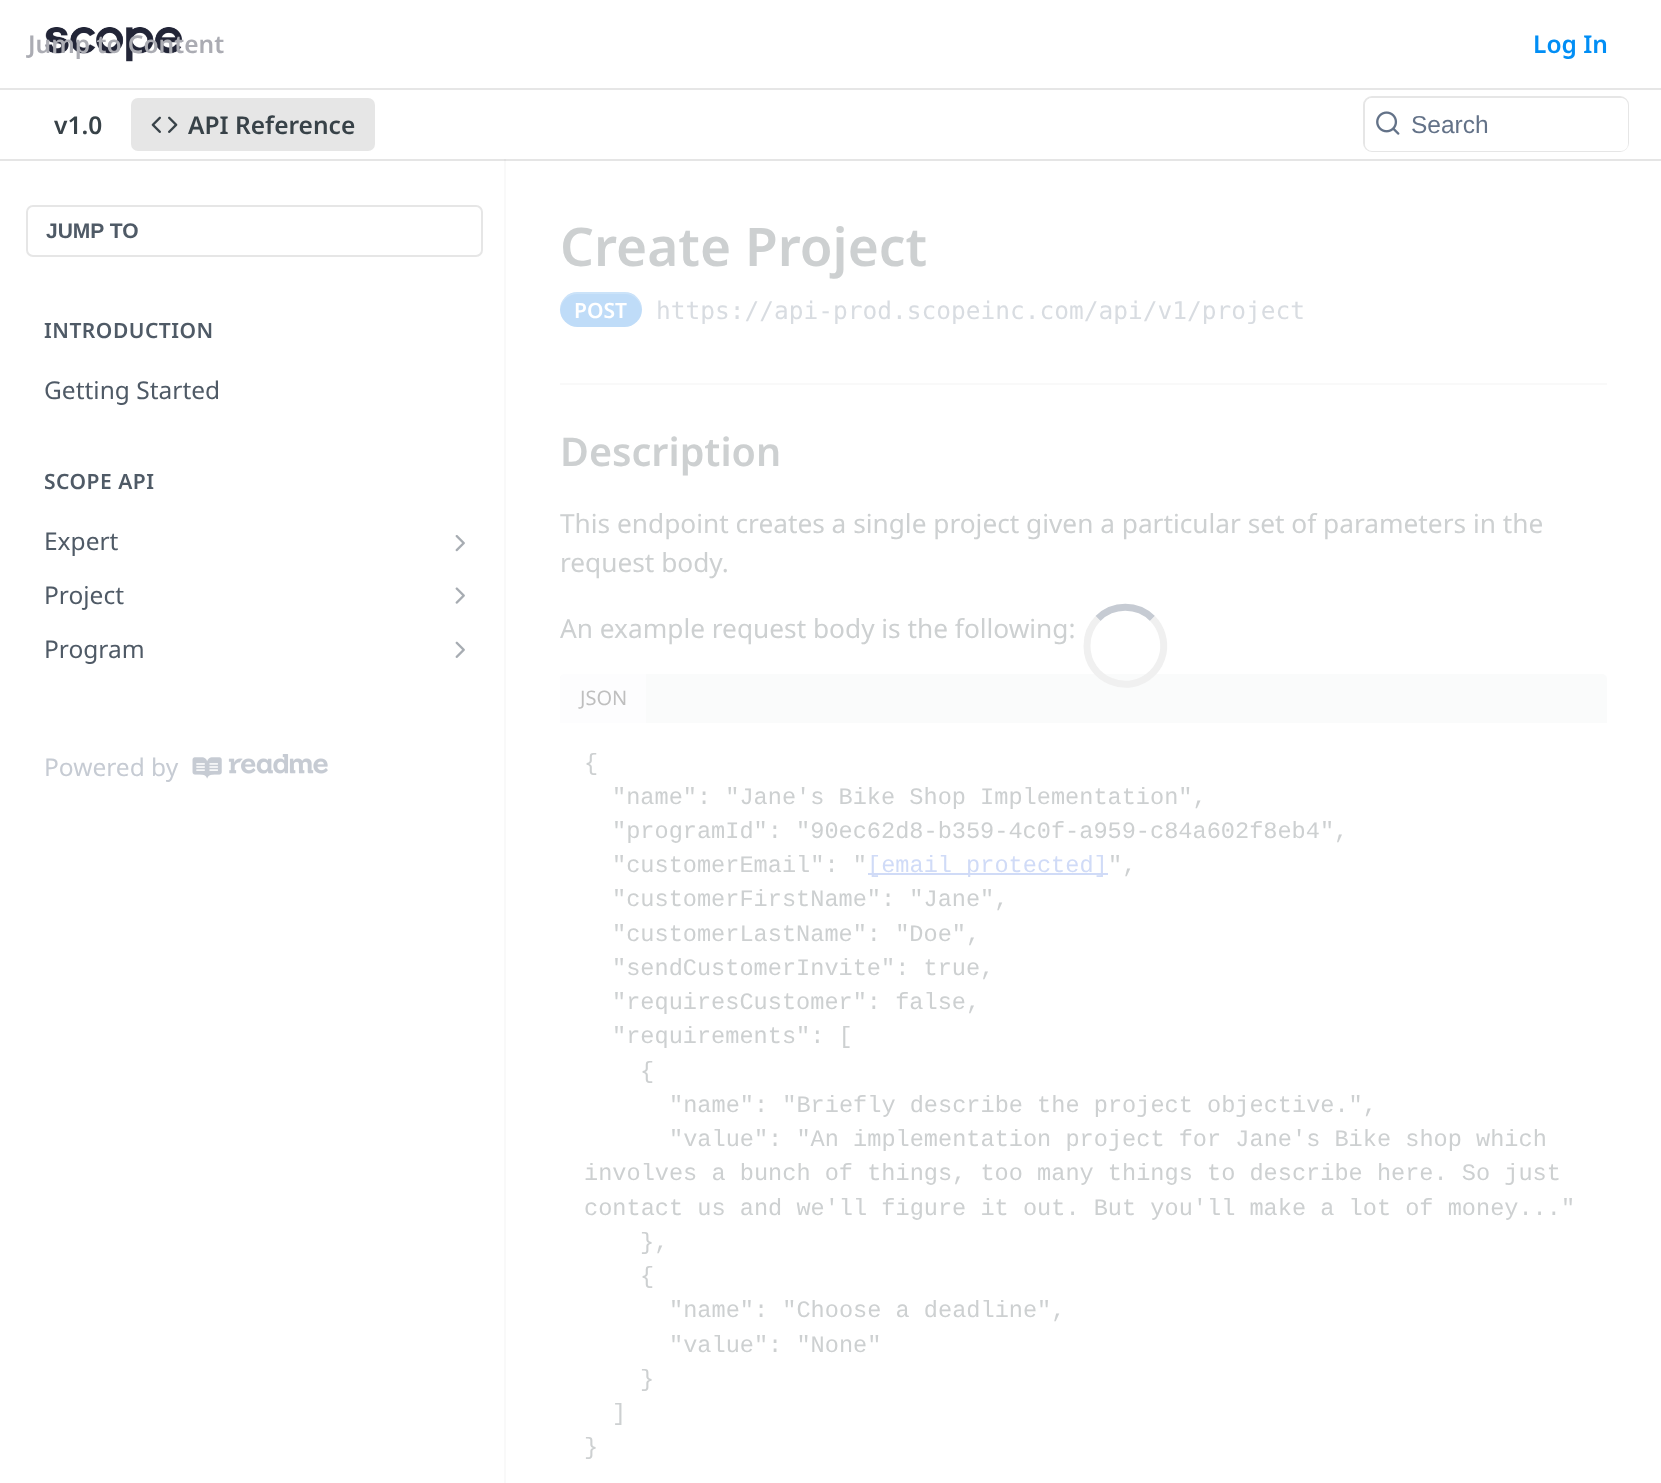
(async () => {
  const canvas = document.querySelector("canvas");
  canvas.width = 1661;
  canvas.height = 1483;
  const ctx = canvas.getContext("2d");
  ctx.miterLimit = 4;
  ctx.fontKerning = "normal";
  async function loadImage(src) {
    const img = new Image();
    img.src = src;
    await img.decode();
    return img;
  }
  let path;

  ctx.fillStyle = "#ffffff";
  ctx.fillRect(0, 0, 1661, 1483);
  ctx.fillStyle = "#f9f9f9";
  path = new Path2D("M2 159H504V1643H506V159Z");
  ctx.fill(path);
  ctx.fillStyle = "rgba(0, 0, 0, 0.1)";
  path = new Path2D("M0 159V161H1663V2H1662V159Z");
  ctx.fill(path);
  ctx.fillStyle = "#e6e6e6";
  ctx.fillRect(0, 88, 1661, 2);
  ctx.drawImage(await loadImage("img/1.png"), 45, 27, 137, 35);
  ctx.beginPath();
  ctx.roundRect(131, 98, 244, 53, 7);
  ctx.fill();
  ctx.drawImage(await loadImage("img/2.png"), 151, 116, 27, 17);
  ctx.beginPath();
  ctx.roundRect(1364, 97, 264, 54, 8);
  ctx.strokeStyle = "#e6e6e6";
  ctx.lineWidth = 2;
  ctx.stroke();
  ctx.fillStyle = "#ffffff";
  ctx.beginPath();
  ctx.roundRect(1365, 98, 263, 53, 7);
  ctx.fill();
  ctx.drawImage(await loadImage("img/3.png"), 1376, 111, 24, 24);
  ctx.beginPath();
  ctx.roundRect(27, 206, 455, 50, 6);
  ctx.stroke();
  ctx.drawImage(await loadImage("img/4.png"), 455, 535, 10, 17);
  ctx.drawImage(await loadImage("img/5.png"), 455, 587, 10, 17);
  ctx.drawImage(await loadImage("img/6.png"), 455, 641, 10, 17);
  ctx.drawImage(await loadImage("img/7.png"), 192, 754, 136, 25);
  ctx.fillStyle = "#f9f9f9";
  ctx.fillRect(560, 383, 1047, 2);
  ctx.fillStyle = "#bfdcf8";
  ctx.beginPath();
  ctx.roundRect(560, 292, 82, 35, 17.5);
  ctx.fill();
  ctx.fillStyle = "rgba(255, 255, 255, 0.2)";
  path = new Path2D("M578 294H625C634 294 641 301 642 311V310C642 300 634 292 624 292H578C568 292 560 300 560 310V311C561 301 568 294 578 294Z");
  ctx.fill(path);
  ctx.fillStyle = "#fafbfb";
  ctx.beginPath();
  ctx.roundRect(560, 674, 1047, 49, [5, 5, 0, 0]);
  ctx.fill();
  ctx.fillStyle = "#fdfdfe";
  ctx.beginPath();
  ctx.roundRect(560, 674, 86, 49, [5, 0, 0, 0]);
  ctx.fill();
  ctx.fillStyle = "#d0dbf7";
  ctx.fillRect(868, 873, 240, 2);
  path = new Path2D("M1098 618.5C1113 603.5 1137.5 603.5 1152.5 618.5");
  ctx.strokeStyle = "#c6cbd3";
  ctx.lineWidth = 7;
  ctx.stroke(path);
  path = new Path2D("M1152.5 618.5C1161.5 627.5 1165.5 641 1163 653.5C1161.5 660.5 1158 667.5 1152.5 673C1128.5 697 1087 680 1087 646C1087 635.5 1091 625.5 1098 618.5");
  ctx.strokeStyle = "#f0f0f0";
  ctx.stroke(path);
  ctx.font = "600 24.5px Noto Sans";
  ctx.fillStyle = "#abacb3";
  ctx.fillText("Jump to Content", 28, 53);
  ctx.fillStyle = "#018ef5";
  ctx.fillText("Log In", 1533, 53);
  ctx.fillStyle = "#384248";
  ctx.fillText("v1.0", 54, 134);
  ctx.fillText("API Reference", 188, 134);
  ctx.font = "24.5px Liberation Sans";
  ctx.fillStyle = "#637288";
  ctx.fillText("Search", 1411, 133);
  ctx.font = "bold 21px Liberation Sans";
  ctx.fillStyle = "#4f5a66";
  ctx.fillText("JUMP TO", 46, 238);
  ctx.letterSpacing = "0.5px";
  ctx.font = "600 21px Noto Sans";
  ctx.fillText("INTRODUCTION", 44, 338);
  ctx.letterSpacing = "0px";
  ctx.font = "24.5px Noto Sans";
  ctx.fillText("Getting Started", 44, 399);
  ctx.letterSpacing = "0.5px";
  ctx.font = "600 21px Noto Sans";
  ctx.fillText("SCOPE API", 44, 489);
  ctx.letterSpacing = "0px";
  ctx.font = "24.5px Noto Sans";
  for (const [text, x, y] of [
    ["Expert", 44, 550],
    ["Project", 44, 604],
    ["Program", 44, 658],
  ]) {
    ctx.fillText(text, x, y);
  }
  ctx.fillStyle = "#c6cbd3";
  ctx.fillText("Powered by", 44, 776);
  ctx.font = "600 53.25px Noto Sans";
  ctx.fillStyle = "#cdd0d1";
  ctx.fillText("Create Project", 560, 266);
  ctx.font = "600 21px Noto Sans";
  ctx.fillStyle = "#ffffff";
  ctx.fillText("POST", 574, 318);
  ctx.font = "24.5px DejaVu Sans Mono";
  ctx.fillStyle = "#d8dce1";
  ctx.fillText("https://api-prod.scopeinc.com/api/v1/project", 656, 319);
  ctx.font = "600 39.5px Noto Sans";
  ctx.fillStyle = "#cdd0d1";
  ctx.fillText("Description", 560, 466);
  ctx.font = "26.25px Noto Sans";
  for (const [text, x, y] of [
    ["This endpoint creates a single project given a particular set of parameters in the", 560, 533],
    ["request body.", 560, 572],
    ["An example request body is the following:", 560, 638],
  ]) {
    ctx.fillText(text, x, y);
  }
  ctx.font = "20px Noto Sans";
  ctx.fillStyle = "#bfbfbf";
  ctx.fillText("JSON", 580, 705);
  ctx.font = "23.6px Liberation Mono";
  ctx.fillStyle = "#cdd0d1";
  for (const [text, x, y] of [
    ["{", 584, 770],
    ["\"name\": \"Jane's Bike Shop Implementation\",", 612, 804],
    ["\"programId\": \"90ec62d8-b359-4c0f-a959-c84a602f8eb4\",", 612, 838],
    ["\"customerEmail\": \"", 612, 872],
  ]) {
    ctx.fillText(text, x, y);
  }
  ctx.fillStyle = "#d0dbf7";
  ctx.fillText("[email protected]", 867, 872);
  ctx.fillStyle = "#cdd0d1";
  for (const [text, x, y] of [
    ["\",", 1108, 872],
    ["\"customerFirstName\": \"Jane\",", 612, 906],
    ["\"customerLastName\": \"Doe\",", 612, 941],
    ["\"sendCustomerInvite\": true,", 612, 975],
    ["\"requiresCustomer\": false,", 612, 1009],
    ["\"requirements\": [", 612, 1043],
    ["{", 640, 1078],
    ["\"name\": \"Briefly describe the project objective.\",", 669, 1112],
    ["\"value\": \"An implementation project for Jane's Bike shop which", 669, 1146],
    ["involves a bunch of things, too many things to describe here. So just", 584, 1180],
    ["contact us and we'll figure it out. But you'll make a lot of money...\"", 584, 1215],
    ["},", 640, 1249],
    ["{", 640, 1283],
    ["\"name\": \"Choose a deadline\",", 669, 1317],
    ["\"value\": \"None\"", 669, 1352],
    ["}", 640, 1386],
    ["]", 612, 1420],
    ["}", 584, 1454],
  ]) {
    ctx.fillText(text, x, y);
  }
})();
